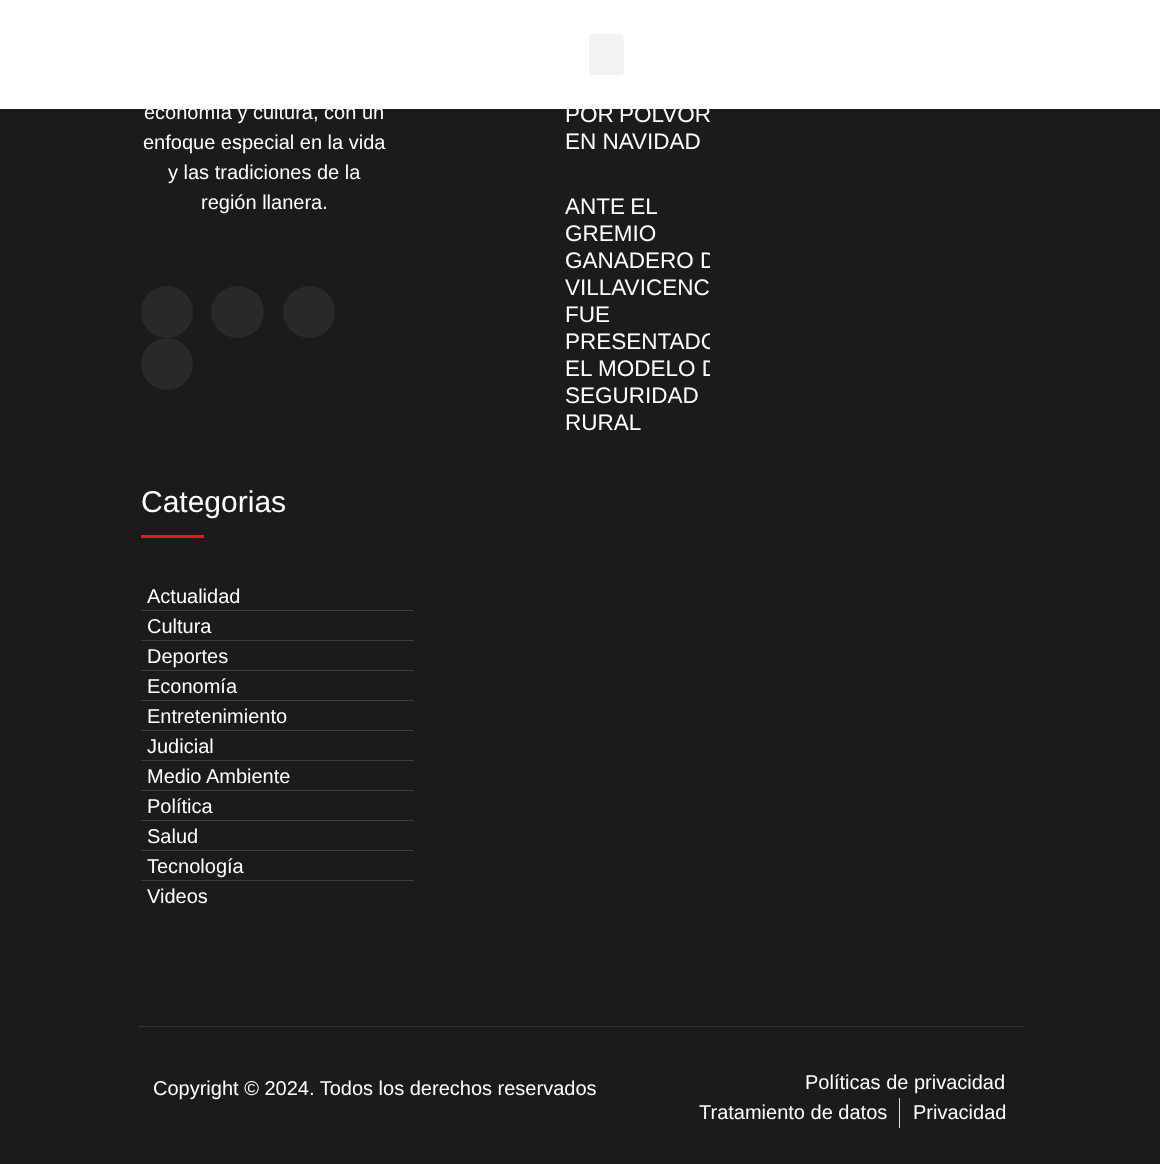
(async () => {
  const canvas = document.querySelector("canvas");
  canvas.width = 1160;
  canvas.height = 1164;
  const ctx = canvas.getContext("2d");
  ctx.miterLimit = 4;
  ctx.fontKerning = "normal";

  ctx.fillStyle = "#1b1b1b";
  ctx.fillRect(0, 0, 1160, 1164);
  ctx.fillStyle = "#ffffff";
  ctx.fillRect(0, 0, 1160, 109);
  ctx.fillStyle = "#f2f2f2";
  ctx.beginPath();
  ctx.roundRect(589, 34, 35, 41, 4);
  ctx.fill();
  ctx.fillStyle = "#292929";
  ctx.beginPath();
  ctx.arc(167, 312, 26, 0, Math.PI * 2);
  ctx.fill();
  ctx.beginPath();
  ctx.roundRect(211, 286, 53, 52, 26);
  ctx.fill();
  ctx.beginPath();
  ctx.arc(309, 312, 26, 0, Math.PI * 2);
  ctx.fill();
  ctx.beginPath();
  ctx.arc(167, 364, 26, 0, Math.PI * 2);
  ctx.fill();
  for (const [x, y, w, h, color] of [
    [141, 535, 63, 3, "#f70d28"],
    [141, 610, 273, 1, "#3c3c3c"],
    [141, 640, 273, 1, "#3c3c3c"],
    [141, 670, 273, 1, "#3c3c3c"],
    [141, 700, 273, 1, "#3c3c3c"],
    [141, 730, 273, 1, "#3c3c3c"],
    [141, 760, 273, 1, "#3c3c3c"],
    [141, 790, 273, 1, "#3c3c3c"],
    [141, 820, 273, 1, "#3c3c3c"],
    [141, 850, 273, 1, "#3c3c3c"],
    [141, 880, 273, 1, "#3c3c3c"],
    [138, 1026, 885, 1, "#323336"],
    [899, 1098, 1, 30, "#dddddd"],
  ]) {
    ctx.fillStyle = color;
    ctx.fillRect(x, y, w, h);
  }
  ctx.font = "20px Liberation Sans";
  ctx.fillStyle = "#ffffff";
  for (const [text, x, y] of [
    ["economía y cultura, con un", 144, 119],
    ["enfoque especial en la vida", 143, 149],
    ["y las tradiciones de la", 168, 179],
    ["región llanera.", 201, 209],
  ]) {
    ctx.fillText(text, x, y);
  }
  ctx.wordSpacing = "-1px";
  ctx.font = "22.5px Liberation Sans";
  ctx.fillText("POR PÓLVOR", 565, 122);
  ctx.wordSpacing = "0px";
  ctx.fillText("EN NAVIDAD", 565, 149);
  ctx.wordSpacing = "-1px";
  ctx.fillText("ANTE EL", 565, 214);
  ctx.wordSpacing = "0px";
  ctx.fillText("GREMIO", 565, 241);
  ctx.save();
  ctx.beginPath();
  ctx.rect(438, 194, 272, 242);
  ctx.clip();
  ctx.fillText("GANADERO D", 565, 268);
  ctx.restore();
  ctx.fillText("VILLAVICENC", 565, 295);
  ctx.fillText("FUE", 565, 322);
  ctx.save();
  ctx.beginPath();
  ctx.rect(438, 194, 272, 242);
  ctx.clip();
  ctx.fillText("PRESENTADO", 565, 349);
  ctx.fillText("EL MODELO D", 565, 376);
  ctx.restore();
  ctx.fillText("SEGURIDAD", 565, 403);
  ctx.fillText("RURAL", 565, 430);
  ctx.font = "30px Liberation Sans";
  ctx.fillText("Categorias", 141, 512);
  ctx.font = "20px Liberation Sans";
  for (const [text, x, y] of [
    ["Actualidad", 147, 603],
    ["Cultura", 147, 633],
    ["Deportes", 147, 663],
    ["Economía", 147, 693],
    ["Entretenimiento", 147, 723],
    ["Judicial", 147, 753],
    ["Medio Ambiente", 147, 783],
    ["Política", 147, 813],
    ["Salud", 147, 843],
    ["Tecnología", 147, 873],
    ["Videos", 147, 903],
    ["Copyright © 2024. Todos los derechos reservados", 153, 1095],
    ["Políticas de privacidad", 805, 1089],
    ["Tratamiento de datos", 699, 1119],
    ["Privacidad", 913, 1119],
  ]) {
    ctx.fillText(text, x, y);
  }
})();
